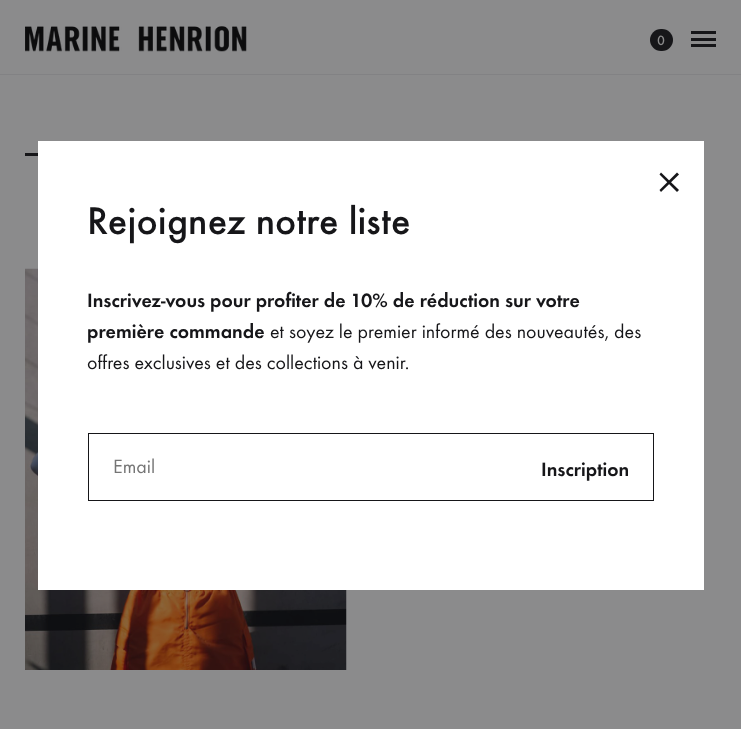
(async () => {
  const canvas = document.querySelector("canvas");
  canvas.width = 741;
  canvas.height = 729;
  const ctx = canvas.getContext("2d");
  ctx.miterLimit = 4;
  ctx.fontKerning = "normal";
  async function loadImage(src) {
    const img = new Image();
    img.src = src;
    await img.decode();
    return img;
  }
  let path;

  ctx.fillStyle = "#8b8b8c";
  ctx.fillRect(0, 0, 741, 729);
  ctx.fillStyle = "#828284";
  ctx.fillRect(0, 74, 741, 1);
  ctx.drawImage(await loadImage("img/1.png"), 25, 26, 222, 26);
  ctx.fillStyle = "#161619";
  ctx.beginPath();
  ctx.roundRect(650, 29, 23, 22, 11);
  ctx.fill();
  for (const [x, y, w, h, color] of [
    [691, 38, 25, 3, "#161619"],
    [691, 31, 25, 3, "#161619"],
    [691, 44, 25, 3, "#161619"],
    [25, 153, 13, 3, "#161619"],
  ]) {
    ctx.fillStyle = color;
    ctx.fillRect(x, y, w, h);
  }
  ctx.drawImage(await loadImage("img/2.png"), 25, 268, 322, 402);
  ctx.fillStyle = "#ffffff";
  ctx.fillRect(38, 141, 666, 449);
  ctx.fillStyle = "#161619";
  path = new Path2D("M661 172.5L679 190L677 192L659.5 174.5Z");
  ctx.fill(path);
  path = new Path2D("M659.5 190L677 172.5L679 174.5L661 192Z");
  ctx.fill(path);
  ctx.strokeStyle = "#161619";
  ctx.strokeRect(88.5, 433.5, 565, 67);
  ctx.font = "500 14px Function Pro";
  ctx.fillStyle = "#8b8b8c";
  ctx.fillText("0", 657, 45);
  ctx.font = "500 40px Function Pro";
  ctx.fillStyle = "#161619";
  ctx.fillText("Rejoignez notre liste", 87, 234);
  ctx.font = "600 20px Function Pro";
  ctx.fillText("Inscrivez-vous pour profiter de 10% de réduction sur votre", 87, 307);
  ctx.fillText("première commande", 87, 338);
  ctx.font = "20px Function Pro";
  ctx.fillText("et soyez le premier informé des nouveautés, des", 270, 338);
  ctx.fillText("offres exclusives et des collections à venir.", 87, 369);
  ctx.fillStyle = "#757575";
  ctx.fillText("Email", 113, 473);
  ctx.font = "600 20px Function Pro";
  ctx.fillStyle = "#161619";
  ctx.fillText("Inscription", 541, 476);
})();
